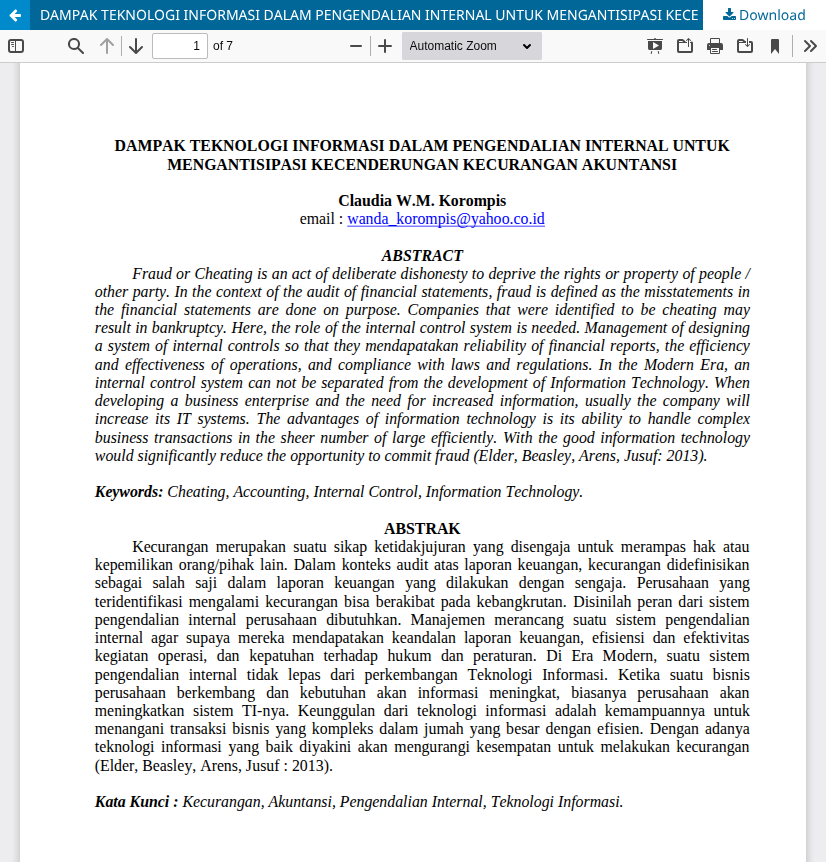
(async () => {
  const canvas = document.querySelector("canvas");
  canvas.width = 826;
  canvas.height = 862;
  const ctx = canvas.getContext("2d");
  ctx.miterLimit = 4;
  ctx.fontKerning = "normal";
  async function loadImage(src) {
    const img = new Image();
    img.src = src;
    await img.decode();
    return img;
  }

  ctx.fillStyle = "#ffffff";
  ctx.fillRect(0, 0, 826, 862);
  ctx.fillStyle = "#006798";
  ctx.fillRect(30, 0, 673, 30);
  ctx.fillStyle = "#008acb";
  ctx.fillRect(0, 0, 30, 30);
  ctx.drawImage(await loadImage("img/1.png"), 9, 9, 12, 13);
  ctx.drawImage(await loadImage("img/2.png"), 723, 8, 13, 12);
  ctx.drawImage(await loadImage("img/3.png"), 0, 30, 826, 832);
  ctx.font = "14px Noto Sans";
  ctx.fillStyle = "#ffffff";
  ctx.fillText("DAMPAK TEKNOLOGI INFORMASI DALAM PENGENDALIAN INTERNAL UNTUK MENGANTISIPASI KECE", 40, 20);
  ctx.fillStyle = "#006798";
  ctx.fillText("Download", 739, 20);
})();
